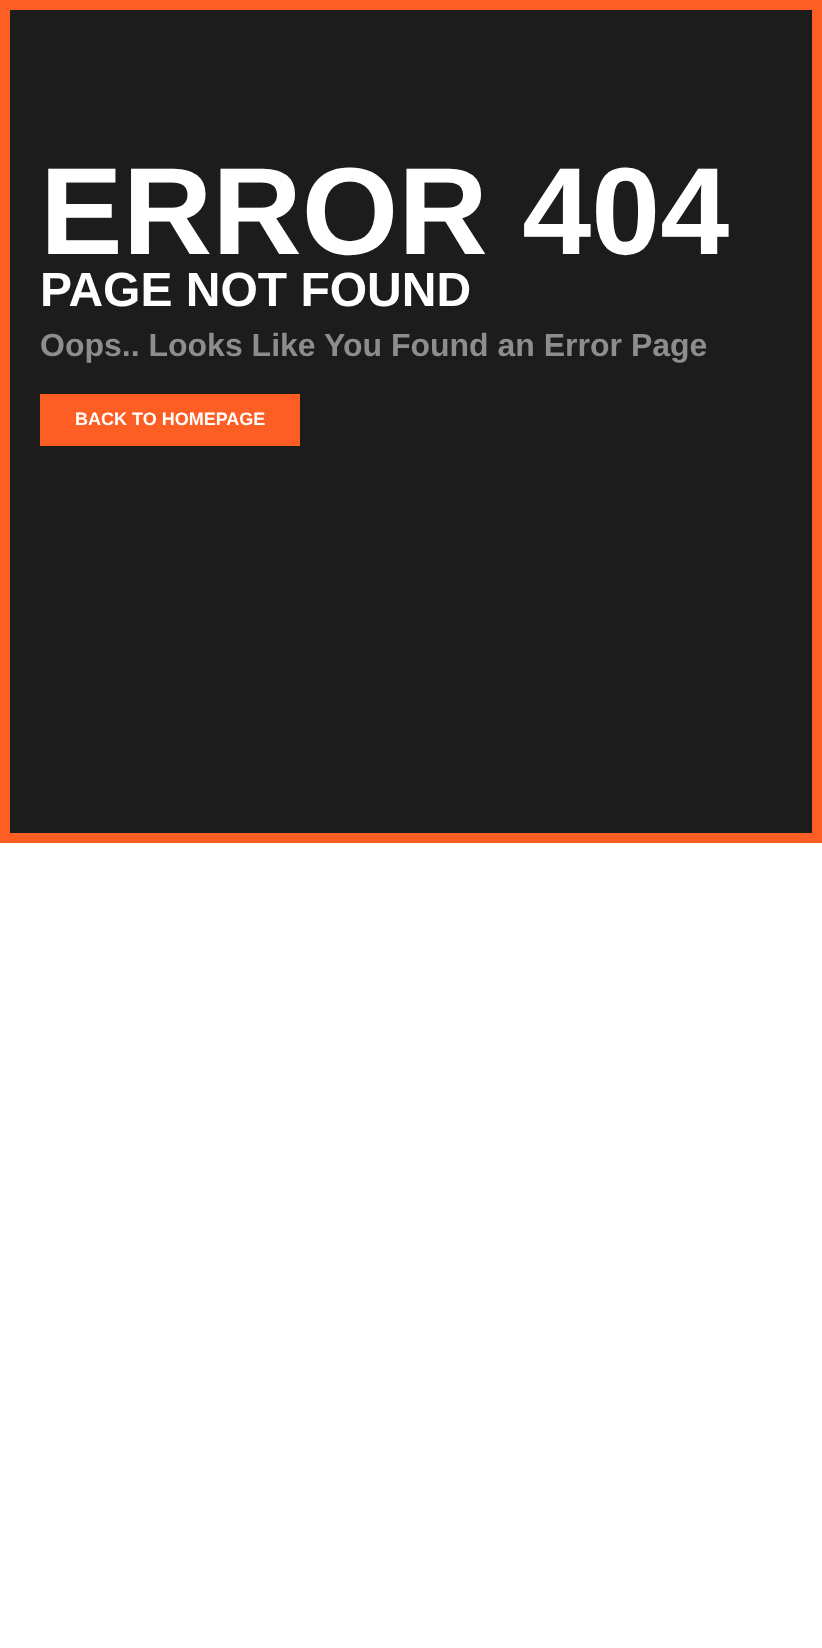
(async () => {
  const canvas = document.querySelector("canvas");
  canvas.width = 822;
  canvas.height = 1648;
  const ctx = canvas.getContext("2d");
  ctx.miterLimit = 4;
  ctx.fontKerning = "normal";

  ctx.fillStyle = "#ffffff";
  ctx.fillRect(0, 0, 822, 1648);
  ctx.fillStyle = "#1c1c1c";
  ctx.beginPath();
  ctx.rect(5, 5, 812, 833);
  ctx.fill();
  ctx.strokeStyle = "#fc5e23";
  ctx.lineWidth = 10;
  ctx.stroke();
  ctx.fillStyle = "#fc5e23";
  ctx.fillRect(40, 394, 260, 52);
  ctx.font = "bold 124px Liberation Sans";
  ctx.fillStyle = "#ffffff";
  ctx.fillText("ERROR 404", 40, 254);
  ctx.font = "bold 48px Liberation Sans";
  ctx.fillText("PAGE NOT FOUND", 40, 306);
  ctx.font = "bold 32px Liberation Sans";
  ctx.fillStyle = "#8d8d8d";
  ctx.fillText("Oops.. Looks Like You Found an Error Page", 40, 356);
  ctx.font = "bold 18px Liberation Sans";
  ctx.fillStyle = "#ffffff";
  ctx.fillText("BACK TO HOMEPAGE", 75, 425);
})();
